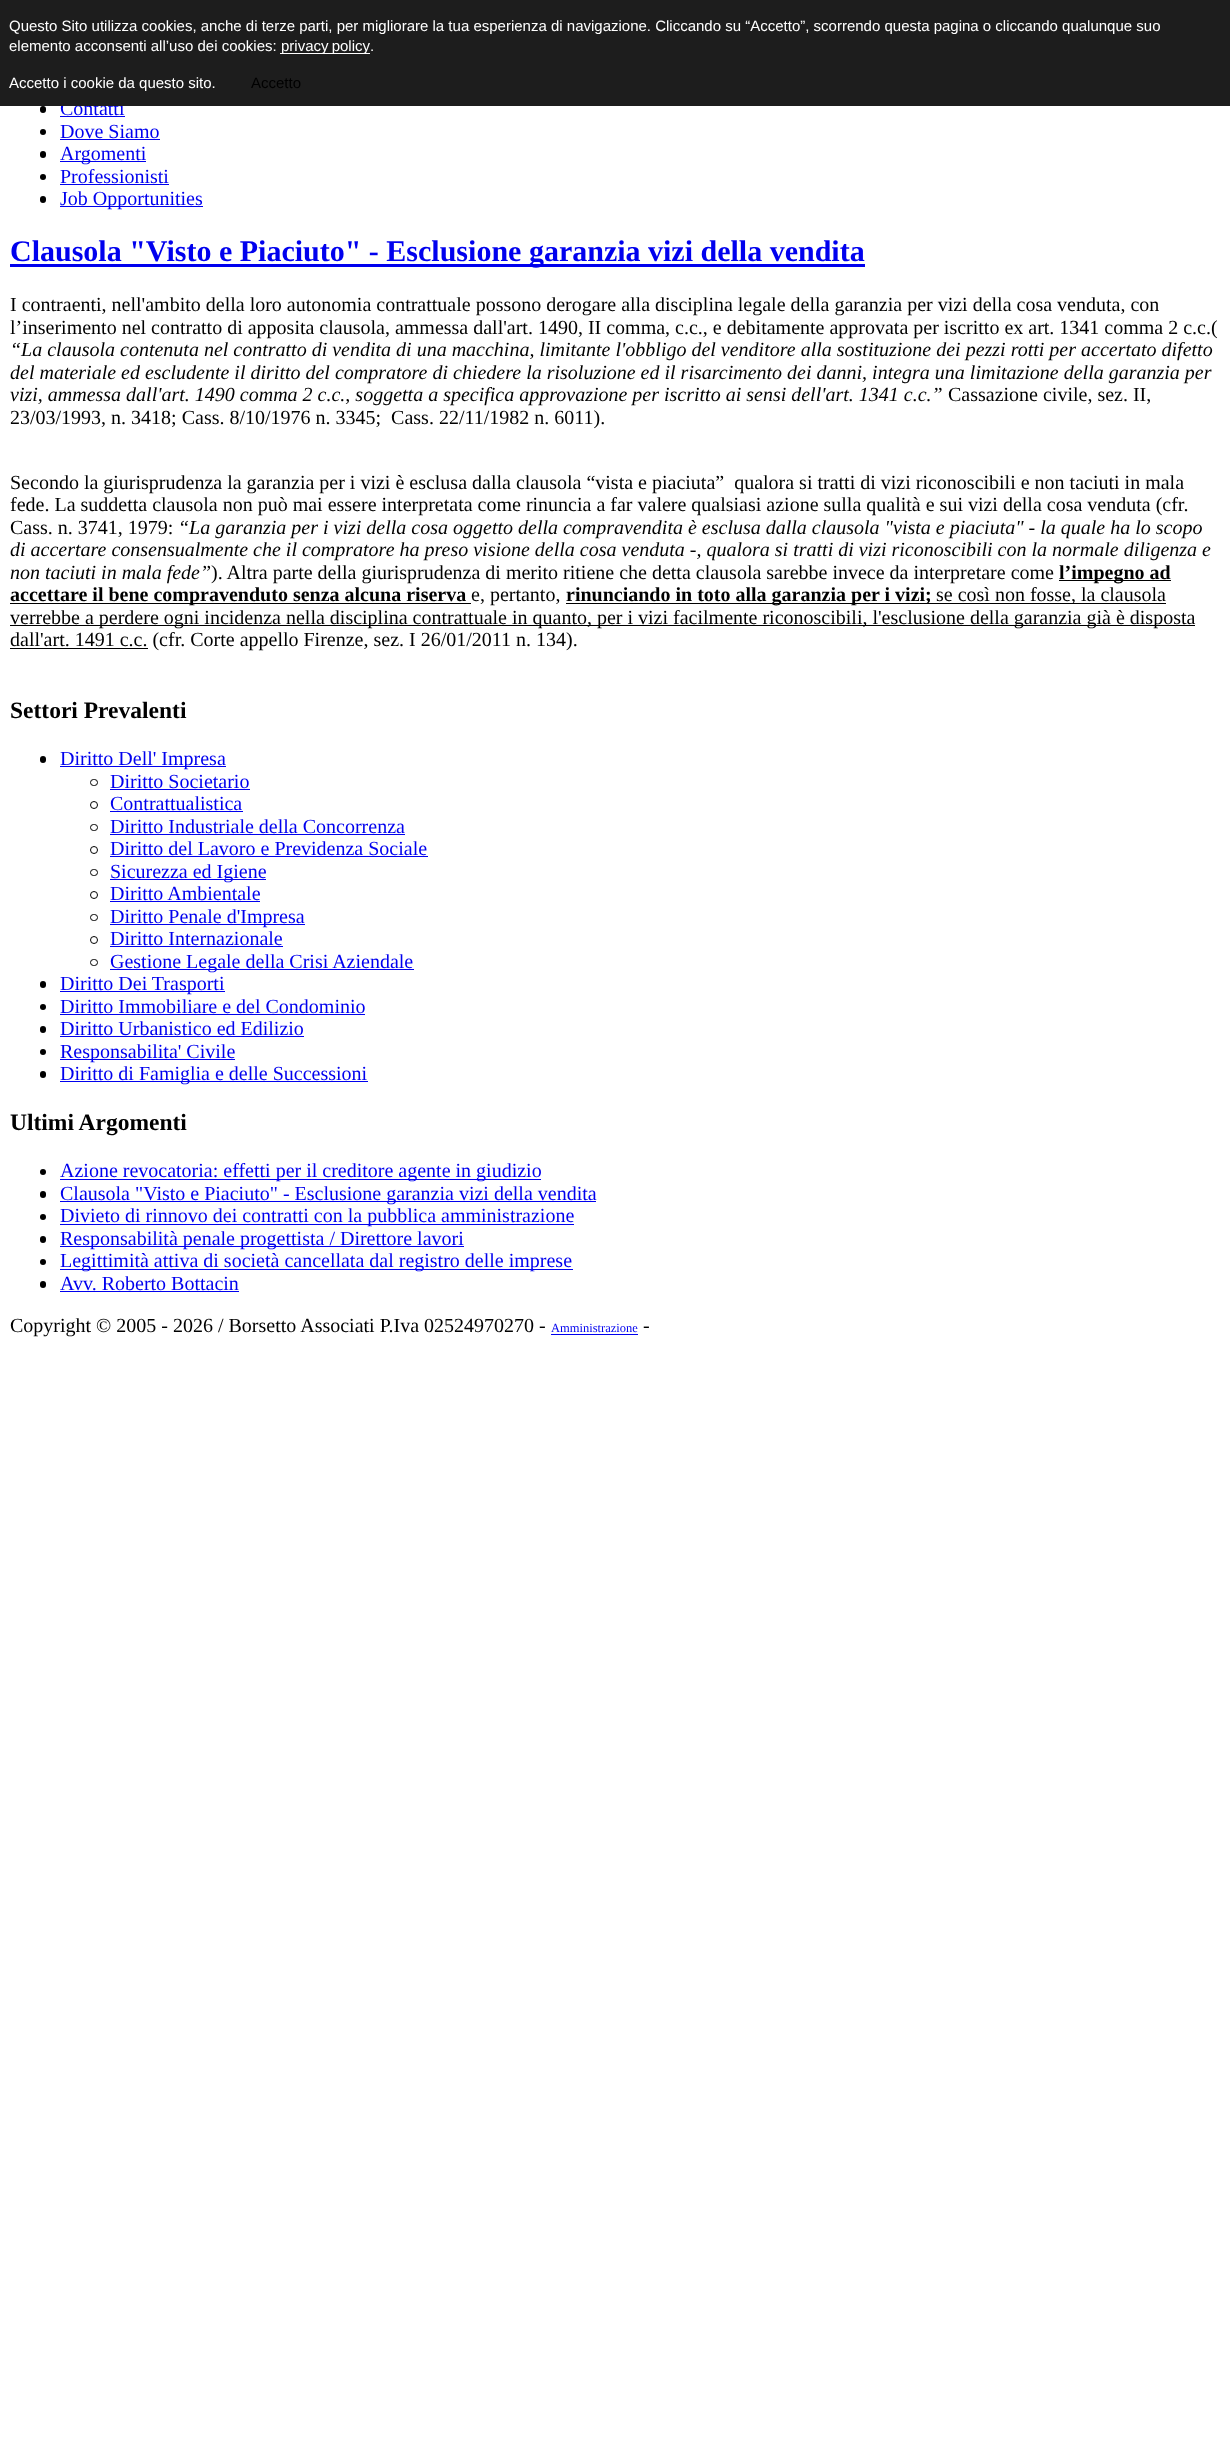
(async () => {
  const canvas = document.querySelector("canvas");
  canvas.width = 1230;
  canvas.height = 2461;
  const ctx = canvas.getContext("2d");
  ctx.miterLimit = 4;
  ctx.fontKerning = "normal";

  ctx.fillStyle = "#ffffff";
  ctx.fillRect(0, 0, 1230, 2461);
  ctx.fillStyle = "#000000";
  ctx.beginPath();
  ctx.roundRect(40, 106, 6, 7, 3);
  ctx.fill();
  ctx.fillStyle = "#0000ee";
  ctx.fillRect(60, 116, 65, 1);
  ctx.fillStyle = "#000000";
  ctx.beginPath();
  ctx.arc(43, 132, 3, 0, Math.PI * 2);
  ctx.fill();
  ctx.fillStyle = "#0000ee";
  ctx.fillRect(60, 139, 100, 1);
  ctx.fillStyle = "#000000";
  ctx.beginPath();
  ctx.roundRect(40, 151, 6, 7, 3);
  ctx.fill();
  ctx.fillStyle = "#0000ee";
  ctx.fillRect(60, 161, 86, 1);
  ctx.fillStyle = "#000000";
  ctx.beginPath();
  ctx.arc(43, 177, 3, 0, Math.PI * 2);
  ctx.fill();
  ctx.fillStyle = "#0000ee";
  ctx.fillRect(60, 184, 109, 1);
  ctx.fillStyle = "#000000";
  ctx.beginPath();
  ctx.roundRect(40, 196, 6, 7, 3);
  ctx.fill();
  for (const [x, y, w, h, color] of [
    [60, 206, 143, 1, "#0000ee"],
    [10, 264, 855, 3, "#0000ee"],
    [1059, 580, 112, 1, "#000000"],
    [10, 603, 461, 1, "#000000"],
    [566, 603, 600, 1, "#000000"],
    [10, 625, 1185, 1, "#000000"],
    [10, 648, 138, 1, "#000000"],
  ]) {
    ctx.fillStyle = color;
    ctx.fillRect(x, y, w, h);
  }
  ctx.beginPath();
  ctx.roundRect(40, 756, 6, 7, 3);
  ctx.fill();
  ctx.fillStyle = "#0000ee";
  ctx.fillRect(60, 766, 166, 1);
  ctx.beginPath();
  ctx.roundRect(90.5, 779.5, 7, 6, 3);
  ctx.strokeStyle = "#000000";
  ctx.stroke();
  ctx.fillRect(110, 789, 140, 1);
  ctx.beginPath();
  ctx.arc(94, 805, 3.5, 0, Math.PI * 2);
  ctx.stroke();
  ctx.fillRect(110, 811, 133, 1);
  ctx.beginPath();
  ctx.roundRect(90.5, 824.5, 7, 6, 3);
  ctx.stroke();
  ctx.fillRect(110, 834, 295, 1);
  ctx.beginPath();
  ctx.arc(94, 850, 3.5, 0, Math.PI * 2);
  ctx.stroke();
  ctx.fillRect(110, 856, 318, 1);
  ctx.beginPath();
  ctx.roundRect(90.5, 869.5, 7, 6, 3);
  ctx.stroke();
  ctx.fillRect(110, 879, 156, 1);
  ctx.beginPath();
  ctx.arc(94, 895, 3.5, 0, Math.PI * 2);
  ctx.stroke();
  ctx.fillRect(110, 901, 150, 1);
  ctx.beginPath();
  ctx.roundRect(90.5, 914.5, 7, 6, 3);
  ctx.stroke();
  ctx.fillRect(110, 924, 195, 1);
  ctx.beginPath();
  ctx.arc(94, 940, 3.5, 0, Math.PI * 2);
  ctx.stroke();
  ctx.fillRect(110, 946, 173, 1);
  ctx.beginPath();
  ctx.roundRect(90.5, 959.5, 7, 6, 3);
  ctx.stroke();
  ctx.fillRect(110, 969, 304, 1);
  ctx.fillStyle = "#000000";
  ctx.beginPath();
  ctx.roundRect(40, 981, 6, 7, 3);
  ctx.fill();
  ctx.fillStyle = "#0000ee";
  ctx.fillRect(60, 991, 165, 1);
  ctx.fillStyle = "#000000";
  ctx.beginPath();
  ctx.arc(43, 1007, 3, 0, Math.PI * 2);
  ctx.fill();
  ctx.fillStyle = "#0000ee";
  ctx.fillRect(60, 1014, 305, 1);
  ctx.fillStyle = "#000000";
  ctx.beginPath();
  ctx.roundRect(40, 1026, 6, 7, 3);
  ctx.fill();
  ctx.fillStyle = "#0000ee";
  ctx.fillRect(60, 1036, 244, 1);
  ctx.fillStyle = "#000000";
  ctx.beginPath();
  ctx.arc(43, 1052, 3, 0, Math.PI * 2);
  ctx.fill();
  ctx.fillStyle = "#0000ee";
  ctx.fillRect(60, 1059, 175, 1);
  ctx.fillStyle = "#000000";
  ctx.beginPath();
  ctx.roundRect(40, 1071, 6, 7, 3);
  ctx.fill();
  ctx.fillStyle = "#0000ee";
  ctx.fillRect(60, 1081, 308, 1);
  ctx.fillStyle = "#000000";
  ctx.beginPath();
  ctx.arc(43, 1172, 3, 0, Math.PI * 2);
  ctx.fill();
  ctx.fillStyle = "#0000ee";
  ctx.fillRect(60, 1179, 481, 1);
  ctx.fillStyle = "#000000";
  ctx.beginPath();
  ctx.roundRect(40, 1191, 6, 7, 3);
  ctx.fill();
  ctx.fillStyle = "#0000ee";
  ctx.fillRect(60, 1201, 536, 1);
  ctx.fillStyle = "#000000";
  ctx.beginPath();
  ctx.arc(43, 1217, 3, 0, Math.PI * 2);
  ctx.fill();
  ctx.fillStyle = "#0000ee";
  ctx.fillRect(60, 1224, 514, 1);
  ctx.fillStyle = "#000000";
  ctx.beginPath();
  ctx.roundRect(40, 1236, 6, 7, 3);
  ctx.fill();
  ctx.fillStyle = "#0000ee";
  ctx.fillRect(60, 1246, 404, 1);
  ctx.fillStyle = "#000000";
  ctx.beginPath();
  ctx.arc(43, 1262, 3, 0, Math.PI * 2);
  ctx.fill();
  ctx.fillStyle = "#0000ee";
  ctx.fillRect(60, 1269, 513, 1);
  ctx.fillStyle = "#000000";
  ctx.beginPath();
  ctx.roundRect(40, 1281, 6, 7, 3);
  ctx.fill();
  ctx.fillStyle = "#0000ee";
  ctx.fillRect(60, 1291, 179, 1);
  ctx.fillRect(551, 1334, 87, 1);
  ctx.font = "20px Liberation Serif";
  ctx.fillText("Contatti", 60, 115);
  ctx.fillStyle = "#1d1d1d";
  ctx.fillRect(0, 0, 1230, 106);
  ctx.font = "15px Liberation Sans";
  ctx.fillStyle = "#ffffff";
  ctx.fillText(".", 370, 51);
  ctx.fillRect(280, 53, 90, 1);
  ctx.wordSpacing = "-1px";
  ctx.fillText("privacy policy", 281, 51);
  ctx.wordSpacing = "0px";
  ctx.fillText("elemento acconsenti all’uso dei cookies:", 9, 51);
  ctx.fillText("Questo Sito utilizza cookies, anche di terze parti, per migliorare la tua esperienza di navigazione. Cliccando su “Accetto”, scorrendo questa pagina o cliccando qualunque suo", 9, 31);
  ctx.fillStyle = "#000000";
  ctx.fillText("Accetto", 251, 88);
  ctx.fillStyle = "#ffffff";
  ctx.fillText("Accetto i cookie da questo sito.", 9, 88);
  ctx.font = "20px Liberation Serif";
  ctx.fillStyle = "#0000ee";
  for (const [text, x, y] of [
    ["Dove Siamo", 60, 138],
    ["Argomenti", 60, 160],
    ["Professionisti", 60, 183],
    ["Job Opportunities", 60, 205],
  ]) {
    ctx.fillText(text, x, y);
  }
  ctx.font = "bold 30px Liberation Serif";
  ctx.fillText("Clausola \"Visto e Piaciuto\" - Esclusione garanzia vizi della vendita", 10, 261);
  ctx.font = "20px Liberation Serif";
  ctx.fillStyle = "#000000";
  ctx.fillText("I contraenti, nell'ambito della loro autonomia contrattuale possono derogare alla disciplina legale della garanzia per vizi della cosa venduta, con", 10, 311);
  ctx.fillText("l’inserimento nel contratto di apposita clausola, ammessa dall'art. 1490, II comma, c.c., e debitamente approvata per iscritto ex art. 1341 comma 2 c.c.(", 10, 334);
  ctx.font = "italic 20px Liberation Serif";
  for (const [text, x, y] of [
    ["“La clausola contenuta nel contratto di vendita di una macchina, limitante l'obbligo del venditore alla sostituzione dei pezzi rotti per accertato difetto", 10, 356],
    ["del materiale ed escludente il diritto del compratore di chiedere la risoluzione ed il risarcimento dei danni, integra una limitazione della garanzia per", 10, 379],
    ["vizi, ammessa dall'art. 1490 comma 2 c.c., soggetta a specifica approvazione per iscritto ai sensi dell'art. 1341 c.c.”", 10, 401],
  ]) {
    ctx.fillText(text, x, y);
  }
  ctx.font = "20px Liberation Serif";
  for (const [text, x, y] of [
    ["Cassazione civile, sez. II,", 948, 401],
    ["23/03/1993, n. 3418; Cass. 8/10/1976 n. 3345;  Cass. 22/11/1982 n. 6011).", 10, 424],
    ["Secondo la giurisprudenza la garanzia per i vizi è esclusa dalla clausola “vista e piaciuta”  qualora si tratti di vizi riconoscibili e non taciuti in mala", 10, 489],
    ["fede. La suddetta clausola non può mai essere interpretata come rinuncia a far valere qualsiasi azione sulla qualità e sui vizi della cosa venduta (cfr.", 10, 511],
    ["Cass. n. 3741, 1979:", 10, 534],
  ]) {
    ctx.fillText(text, x, y);
  }
  ctx.font = "italic 20px Liberation Serif";
  for (const [text, x, y] of [
    ["“La garanzia per i vizi della cosa oggetto della compravendita è esclusa dalla clausola \"vista e piaciuta\" - la quale ha lo scopo", 178, 534],
    ["di accertare consensualmente che il compratore ha preso visione della cosa venduta -, qualora si tratti di vizi riconoscibili con la normale diligenza e", 10, 556],
    ["non taciuti in mala fede”", 10, 579],
  ]) {
    ctx.fillText(text, x, y);
  }
  ctx.font = "20px Liberation Serif";
  ctx.fillText("). Altra parte della giurisprudenza di merito ritiene che detta clausola sarebbe invece da interpretare come", 211, 579);
  ctx.font = "bold 20px Liberation Serif";
  ctx.fillText("l’impegno ad", 1059, 579);
  ctx.fillText("accettare il bene compravenduto senza alcuna riserva", 10, 601);
  ctx.font = "20px Liberation Serif";
  ctx.fillText("e, pertanto,", 471, 601);
  ctx.font = "bold 20px Liberation Serif";
  ctx.fillText("rinunciando in toto alla garanzia per i vizi;", 566, 601);
  ctx.font = "20px Liberation Serif";
  for (const [text, x, y] of [
    ["se così non fosse, la clausola", 936, 601],
    ["verrebbe a perdere ogni incidenza nella disciplina contrattuale in quanto, per i vizi facilmente riconoscibili, l'esclusione della garanzia già è disposta", 10, 624],
    ["dall'art. 1491 c.c. (cfr. Corte appello Firenze, sez. I 26/01/2011 n. 134).", 10, 646],
  ]) {
    ctx.fillText(text, x, y);
  }
  ctx.font = "bold 23.5px Liberation Serif";
  ctx.fillText("Settori Prevalenti", 10, 718);
  ctx.font = "20px Liberation Serif";
  ctx.fillStyle = "#0000ee";
  for (const [text, x, y] of [
    ["Diritto Dell' Impresa", 60, 765],
    ["Diritto Societario", 110, 788],
    ["Contrattualistica", 110, 810],
    ["Diritto Industriale della Concorrenza", 110, 833],
    ["Diritto del Lavoro e Previdenza Sociale", 110, 855],
    ["Sicurezza ed Igiene", 110, 878],
    ["Diritto Ambientale", 110, 900],
    ["Diritto Penale d'Impresa", 110, 923],
    ["Diritto Internazionale", 110, 945],
    ["Gestione Legale della Crisi Aziendale", 110, 968],
    ["Diritto Dei Trasporti", 60, 990],
    ["Diritto Immobiliare e del Condominio", 60, 1013],
    ["Diritto Urbanistico ed Edilizio", 60, 1035],
    ["Responsabilita' Civile", 60, 1058],
    ["Diritto di Famiglia e delle Successioni", 60, 1080],
  ]) {
    ctx.fillText(text, x, y);
  }
  ctx.font = "bold 23.5px Liberation Serif";
  ctx.fillStyle = "#000000";
  ctx.fillText("Ultimi Argomenti", 10, 1130);
  ctx.font = "20px Liberation Serif";
  ctx.fillStyle = "#0000ee";
  for (const [text, x, y] of [
    ["Azione revocatoria: effetti per il creditore agente in giudizio", 60, 1177],
    ["Clausola \"Visto e Piaciuto\" - Esclusione garanzia vizi della vendita", 60, 1200],
    ["Divieto di rinnovo dei contratti con la pubblica amministrazione", 60, 1222],
    ["Responsabilità penale progettista / Direttore lavori", 60, 1245],
    ["Legittimità attiva di società cancellata dal registro delle imprese", 60, 1267],
    ["Avv. Roberto Bottacin", 60, 1290],
  ]) {
    ctx.fillText(text, x, y);
  }
  ctx.fillStyle = "#000000";
  ctx.fillText("Copyright © 2005 - 2026 / Borsetto Associati P.Iva 02524970270 -", 10, 1332);
  ctx.font = "12.5px Liberation Serif";
  ctx.fillStyle = "#0000ee";
  ctx.fillText("Amministrazione", 551, 1332);
  ctx.font = "20px Liberation Serif";
  ctx.fillStyle = "#000000";
  ctx.fillText("-", 643, 1332);
})();
